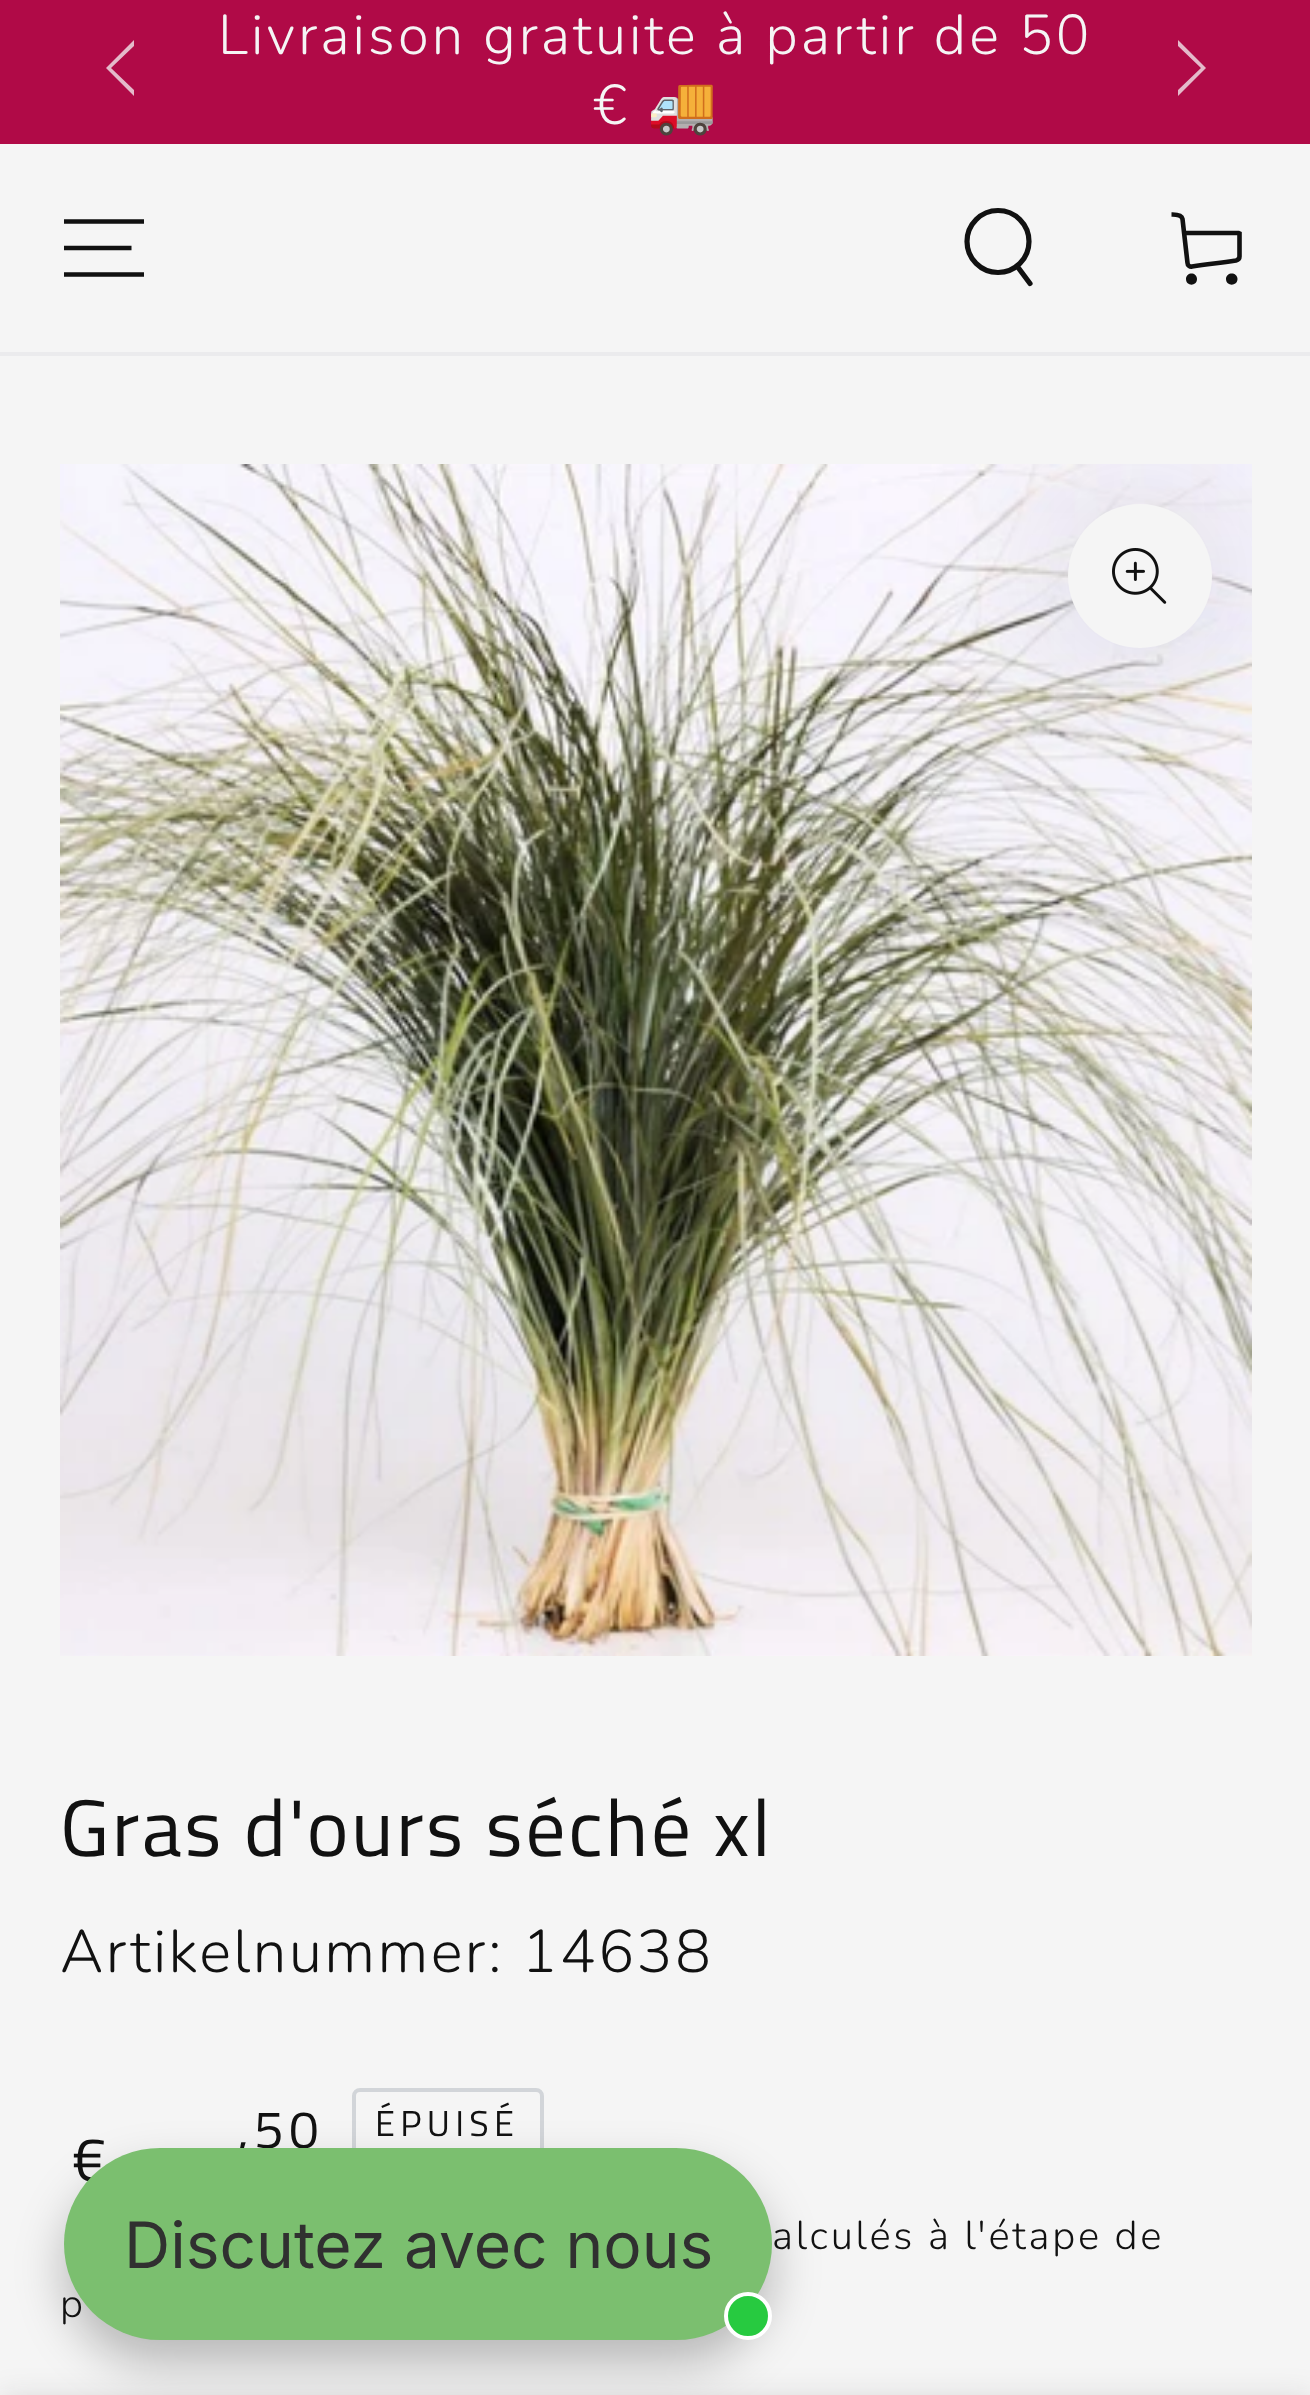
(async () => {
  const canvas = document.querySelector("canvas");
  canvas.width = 1310;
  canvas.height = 2395;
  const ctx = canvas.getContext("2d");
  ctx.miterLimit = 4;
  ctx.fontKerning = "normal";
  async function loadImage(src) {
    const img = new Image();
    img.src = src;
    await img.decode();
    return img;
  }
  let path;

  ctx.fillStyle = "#f5f5f5";
  ctx.fillRect(0, 0, 1310, 2395);
  ctx.fillStyle = "#b00a47";
  ctx.fillRect(0, 0, 1310, 144);
  ctx.fillStyle = "#e4baca";
  path = new Path2D("M106 68L134 96V90L111 68L134 46V40Z");
  ctx.fill(path, "evenodd");
  path = new Path2D("M1206 68L1178 96V90L1201 68L1178 46V40Z");
  ctx.fill(path, "evenodd");
  ctx.drawImage(await loadImage("img/2.png"), 60, 464, 1192, 1192);
  ctx.save();
  ctx.beginPath();
  ctx.rect(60, 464, 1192, 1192);
  ctx.clip();
  ctx.fillStyle = "rgba(17, 17, 17, 0.2)";
  ctx.filter = "blur(80px)";
  ctx.beginPath();
  ctx.roundRect(1068, 504, 144, 144, 72);
  ctx.fill();
  ctx.filter = "none";
  ctx.restore();
  ctx.fillStyle = "#ebebed";
  ctx.fillRect(0, 352, 1310, 4);
  path = new Path2D("M64 274.5H144M64 248H131.5M64 221.5H144");
  ctx.strokeStyle = "#111111";
  ctx.lineWidth = 4.5;
  ctx.stroke(path);
  ctx.beginPath();
  ctx.arc(998, 241.5, 31, 0, Math.PI * 2);
  ctx.lineWidth = 5.2;
  ctx.stroke();
  path = new Path2D("M1017 266L1030 283.5");
  ctx.lineCap = "round";
  ctx.stroke(path);
  path = new Path2D("M1183 233H1238.5L1239.5 233.5V256.5C1239.5 258.5 1238 260 1236 260.5C1218 263.5 1210 263.5 1192 266.5C1190 267 1187.5 265.5 1187.5 263L1182.5 219C1181.5 214 1174 214.5 1171.5 214.5");
  ctx.lineWidth = 4.6;
  ctx.lineCap = "butt";
  ctx.stroke(path);
  ctx.fillStyle = "#111111";
  path = new Path2D("M1226 279C1226 286.5 1237.5 286.5 1237.5 279C1237.5 271.5 1226 271.5 1226 279ZM1186 279C1186 286.5 1197 286.5 1197 279C1197 271.5 1186 271.5 1186 279Z");
  ctx.fill(path);
  ctx.fillStyle = "#f5f5f5";
  ctx.beginPath();
  ctx.arc(1140, 576, 72, 0, Math.PI * 2);
  ctx.fill();
  ctx.drawImage(await loadImage("img/1.png"), 1112, 548, 55, 56);
  ctx.beginPath();
  ctx.roundRect(354, 2090, 188, 64, 6);
  ctx.strokeStyle = "#d2d5d9";
  ctx.lineWidth = 4;
  ctx.stroke();
  ctx.fillStyle = "rgba(0, 0, 0, 0.25)";
  ctx.filter = "blur(24px)";
  ctx.beginPath();
  ctx.roundRect(64, 2172, 708, 192, 96);
  ctx.fill();
  ctx.filter = "none";
  ctx.fillStyle = "rgba(17, 17, 17, 0.15)";
  ctx.filter = "blur(16px)";
  ctx.beginPath();
  ctx.rect(0, 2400, 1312, 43);
  ctx.fill();
  ctx.filter = "none";
  ctx.letterSpacing = "3.1px";
  ctx.font = "300 56px Nunito";
  ctx.fillStyle = "#f5f5f5";
  ctx.fillText("Livraison gratuite à partir de 50", 218, 54);
  ctx.fillText("€", 593, 124);
  ctx.font = "56px Noto Color Emoji";
  ctx.fillText("🚚", 647, 124);
  ctx.letterSpacing = "2.4px";
  ctx.font = "80px Titillium Web";
  ctx.fillStyle = "#111111";
  ctx.fillText("Gras d'ours séché xl", 60, 1856);
  ctx.font = "300 60px Nunito";
  ctx.fillText("Artikelnummer: 14638", 60, 1972);
  ctx.letterSpacing = "5.25px";
  ctx.font = "53px Titillium Web";
  ctx.fillText(",50", 237, 2148);
  ctx.font = "62px Titillium Web";
  ctx.fillText("€", 72, 2181);
  ctx.font = "36px Titillium Web";
  ctx.fillText("ÉPUISÉ", 375, 2136);
  ctx.letterSpacing = "2.75px";
  ctx.font = "300 40px Nunito";
  ctx.fillText("alculés à l'étape de", 772, 2249);
  ctx.fillText("p", 60, 2317);
  ctx.fillStyle = "#7bbf6f";
  ctx.beginPath();
  ctx.roundRect(64, 2148, 708, 192, 96);
  ctx.fill();
  ctx.letterSpacing = "0px";
  ctx.font = "64px Inter";
  ctx.fillStyle = "#303030";
  ctx.fillText("Discutez avec nous", 124, 2268);
  ctx.fillStyle = "#27ca40";
  ctx.beginPath();
  ctx.arc(748, 2316, 22, 0, Math.PI * 2);
  ctx.fill();
  ctx.strokeStyle = "#ffffff";
  ctx.stroke();
})();
